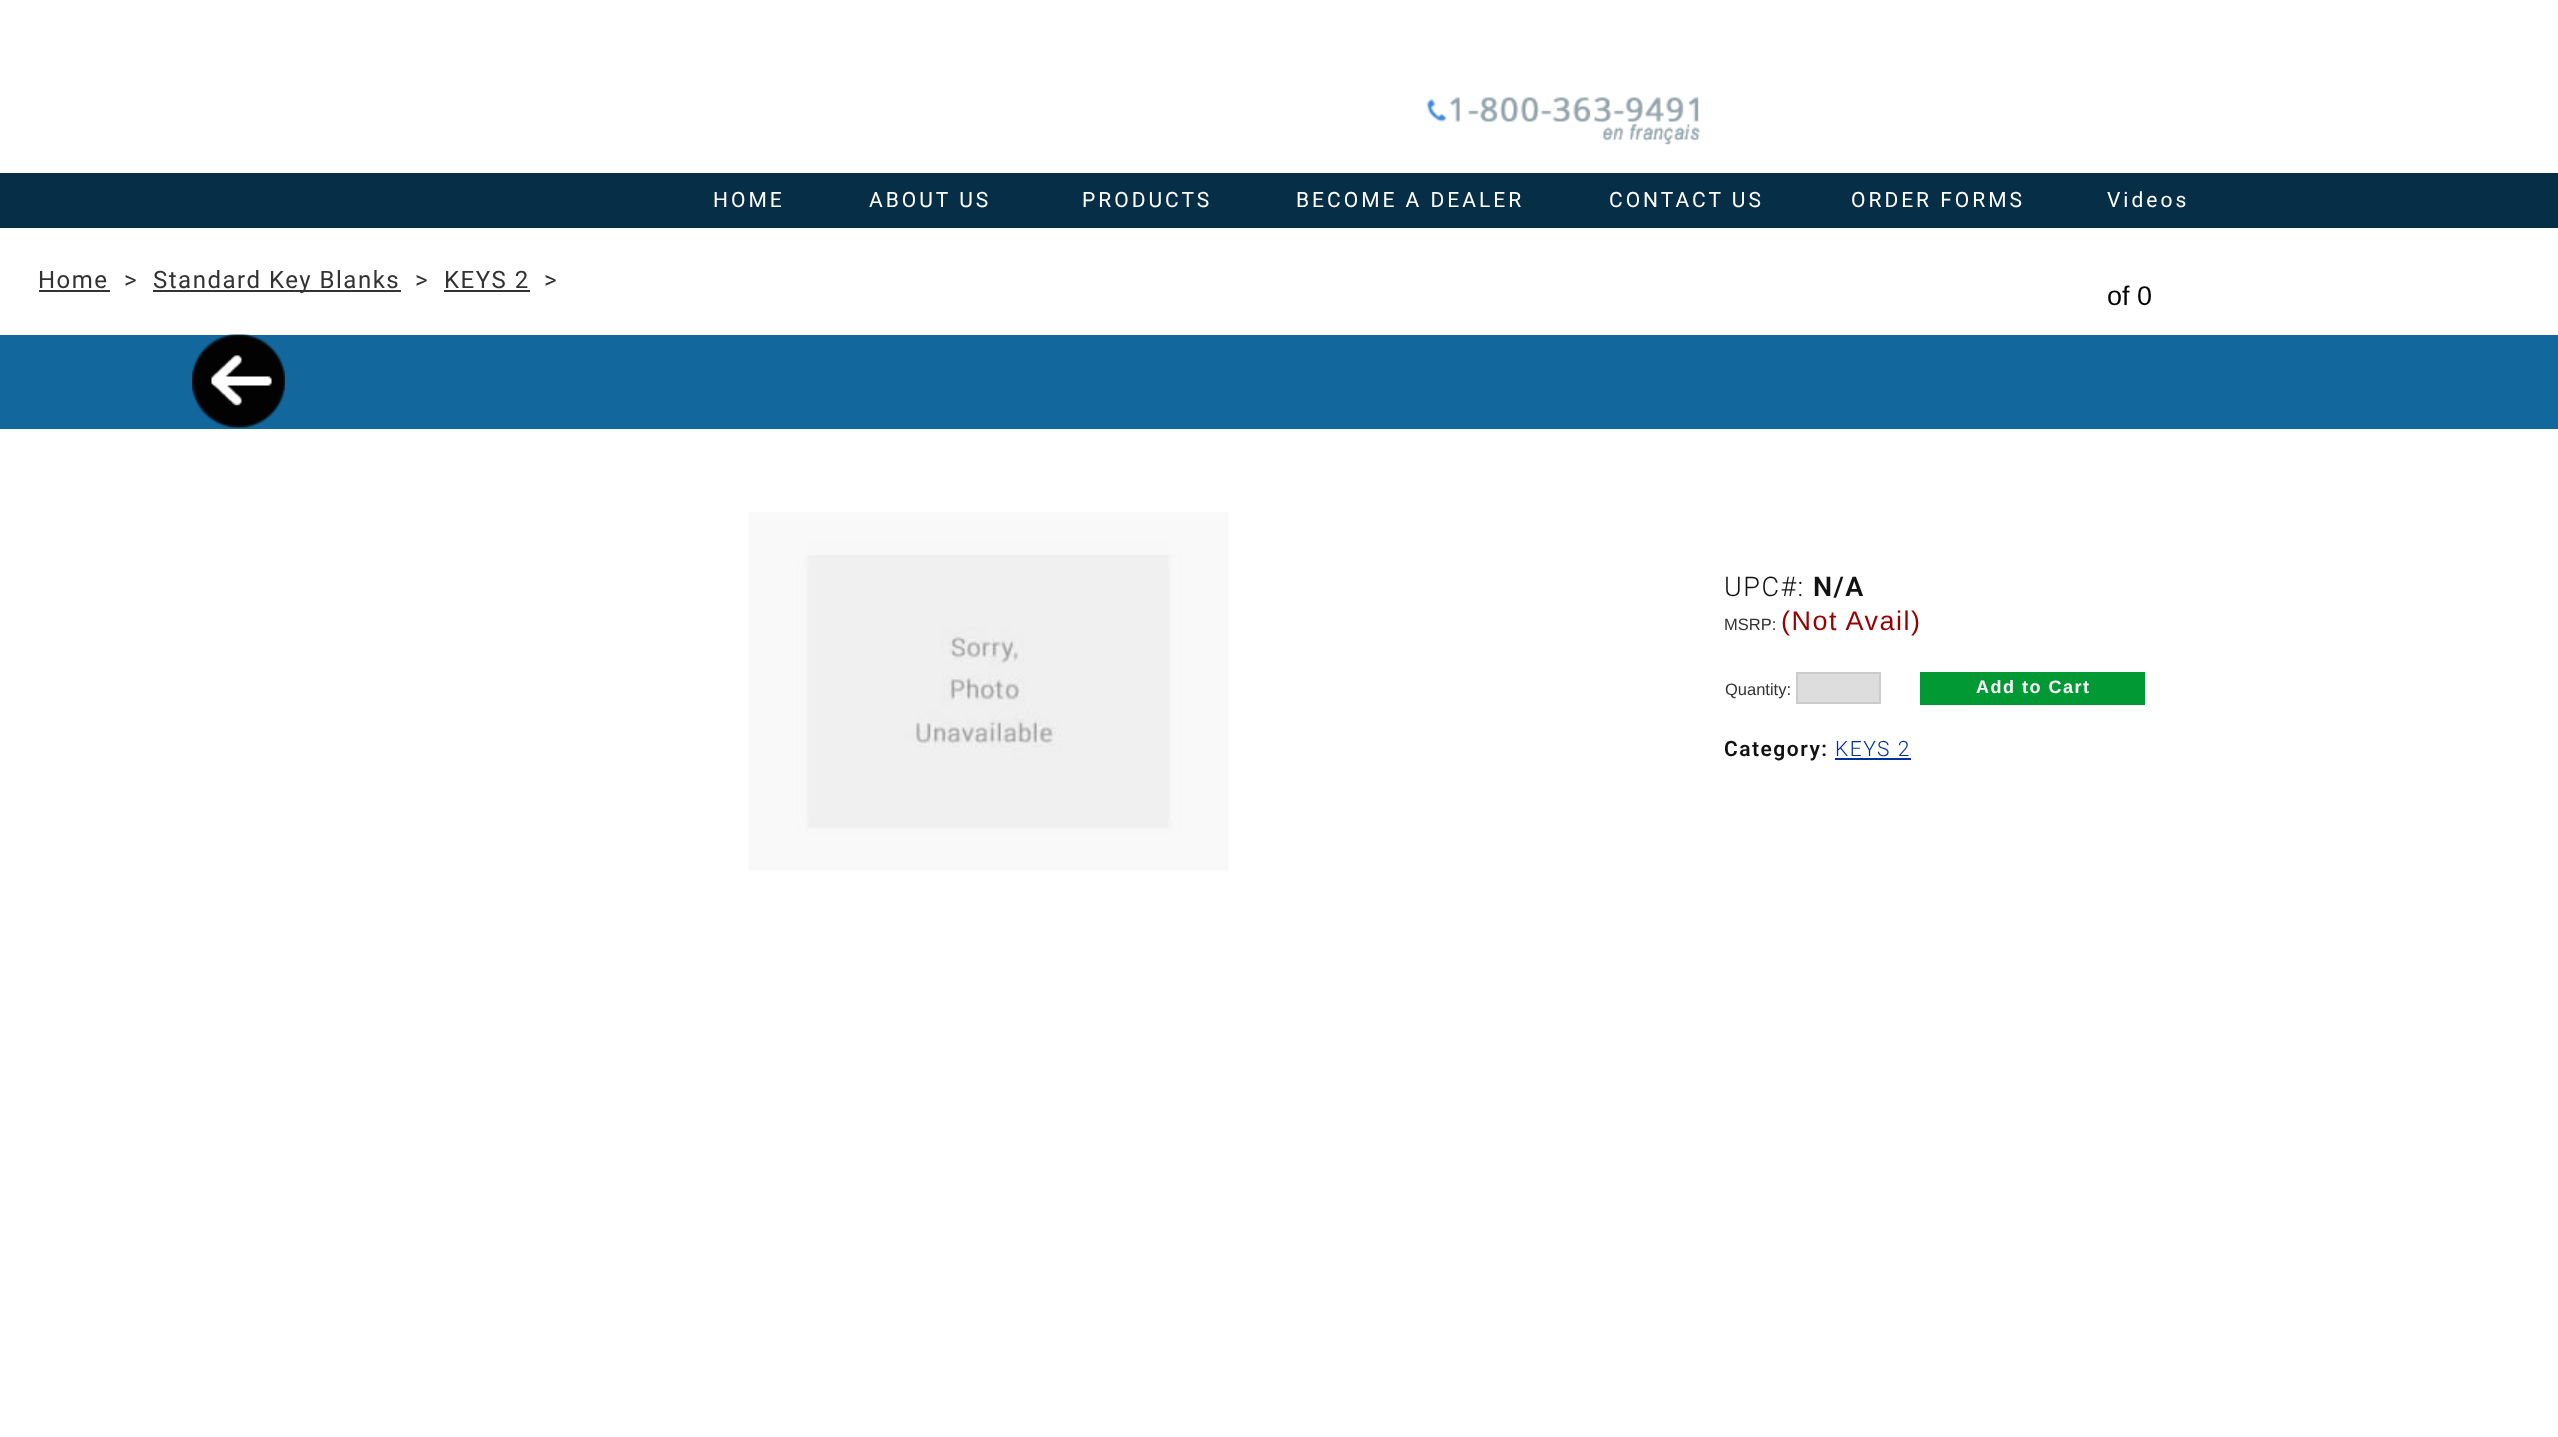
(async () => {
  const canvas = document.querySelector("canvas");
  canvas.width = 2558;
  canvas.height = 1437;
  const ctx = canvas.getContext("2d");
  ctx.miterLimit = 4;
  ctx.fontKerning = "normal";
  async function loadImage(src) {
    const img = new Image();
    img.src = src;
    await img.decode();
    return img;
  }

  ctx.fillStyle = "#ffffff";
  ctx.fillRect(0, 0, 2558, 1437);
  ctx.drawImage(await loadImage("img/1.png"), 1426, 97, 274, 48);
  for (const [x, y, w, h, color] of [
    [0, 173, 2558, 55, "#072e47"],
    [39, 290, 71, 2, "#333333"],
    [153, 290, 248, 2, "#333333"],
    [444, 290, 86, 2, "#333333"],
    [0, 335, 2558, 94, "#12679d"],
  ]) {
    ctx.fillStyle = color;
    ctx.fillRect(x, y, w, h);
  }
  ctx.drawImage(await loadImage("img/2.png"), 192, 334, 93, 94);
  ctx.drawImage(await loadImage("img/3.png"), 748, 512, 481, 359);
  ctx.fillStyle = "#dddddd";
  ctx.beginPath();
  ctx.rect(1797, 673, 83, 30);
  ctx.fill();
  ctx.strokeStyle = "#cccccc";
  ctx.lineWidth = 2;
  ctx.stroke();
  ctx.fillStyle = "#009933";
  ctx.fillRect(1920, 672, 225, 33);
  ctx.fillStyle = "#003399";
  ctx.fillRect(1835, 758, 76, 2);
  ctx.letterSpacing = "3px";
  ctx.font = "21px Roboto";
  ctx.fillStyle = "#ffffff";
  for (const [text, x, y] of [
    ["HOME", 713, 207],
    ["ABOUT US", 869, 207],
    ["PRODUCTS", 1082, 207],
    ["BECOME A DEALER", 1296, 207],
    ["CONTACT US", 1609, 207],
    ["ORDER FORMS", 1851, 207],
    ["Videos", 2107, 207],
  ]) {
    ctx.fillText(text, x, y);
  }
  ctx.letterSpacing = "1.5px";
  ctx.font = "24px Roboto";
  ctx.fillStyle = "#333333";
  for (const [text, x, y] of [
    ["Home", 38, 288],
    [">", 124, 288],
    ["Standard Key Blanks", 153, 288],
    [">", 415, 288],
    ["KEYS 2", 444, 288],
    [">", 544, 288],
  ]) {
    ctx.fillText(text, x, y);
  }
  ctx.letterSpacing = "0px";
  ctx.font = "27px Liberation Sans";
  ctx.fillStyle = "#000000";
  ctx.fillText("of 0", 2107, 305);
  ctx.letterSpacing = "1.5px";
  ctx.font = "300 27px Roboto";
  ctx.fillStyle = "#121212";
  ctx.fillText("UPC#:", 1724, 596);
  ctx.font = "600 27px Roboto";
  ctx.fillText("N/A", 1813, 596);
  ctx.letterSpacing = "0px";
  ctx.font = "16.5px Liberation Sans";
  ctx.fillStyle = "#333333";
  ctx.fillText("MSRP:", 1724, 630);
  ctx.letterSpacing = "1.5px";
  ctx.font = "27px Liberation Sans";
  ctx.fillStyle = "#990000";
  ctx.fillText("(Not Avail)", 1781, 630);
  ctx.letterSpacing = "0px";
  ctx.font = "16.5px Liberation Sans";
  ctx.fillStyle = "#333333";
  ctx.fillText("Quantity:", 1725, 695);
  ctx.letterSpacing = "1.5px";
  ctx.font = "bold 18px Liberation Sans";
  ctx.fillStyle = "#ffffff";
  ctx.fillText("Add to Cart", 1976, 693);
  ctx.font = "600 21px Roboto";
  ctx.fillStyle = "#121212";
  ctx.fillText("Category:", 1724, 756);
  ctx.font = "300 21px Roboto";
  ctx.fillStyle = "#003399";
  ctx.fillText("KEYS 2", 1835, 756);
})();
